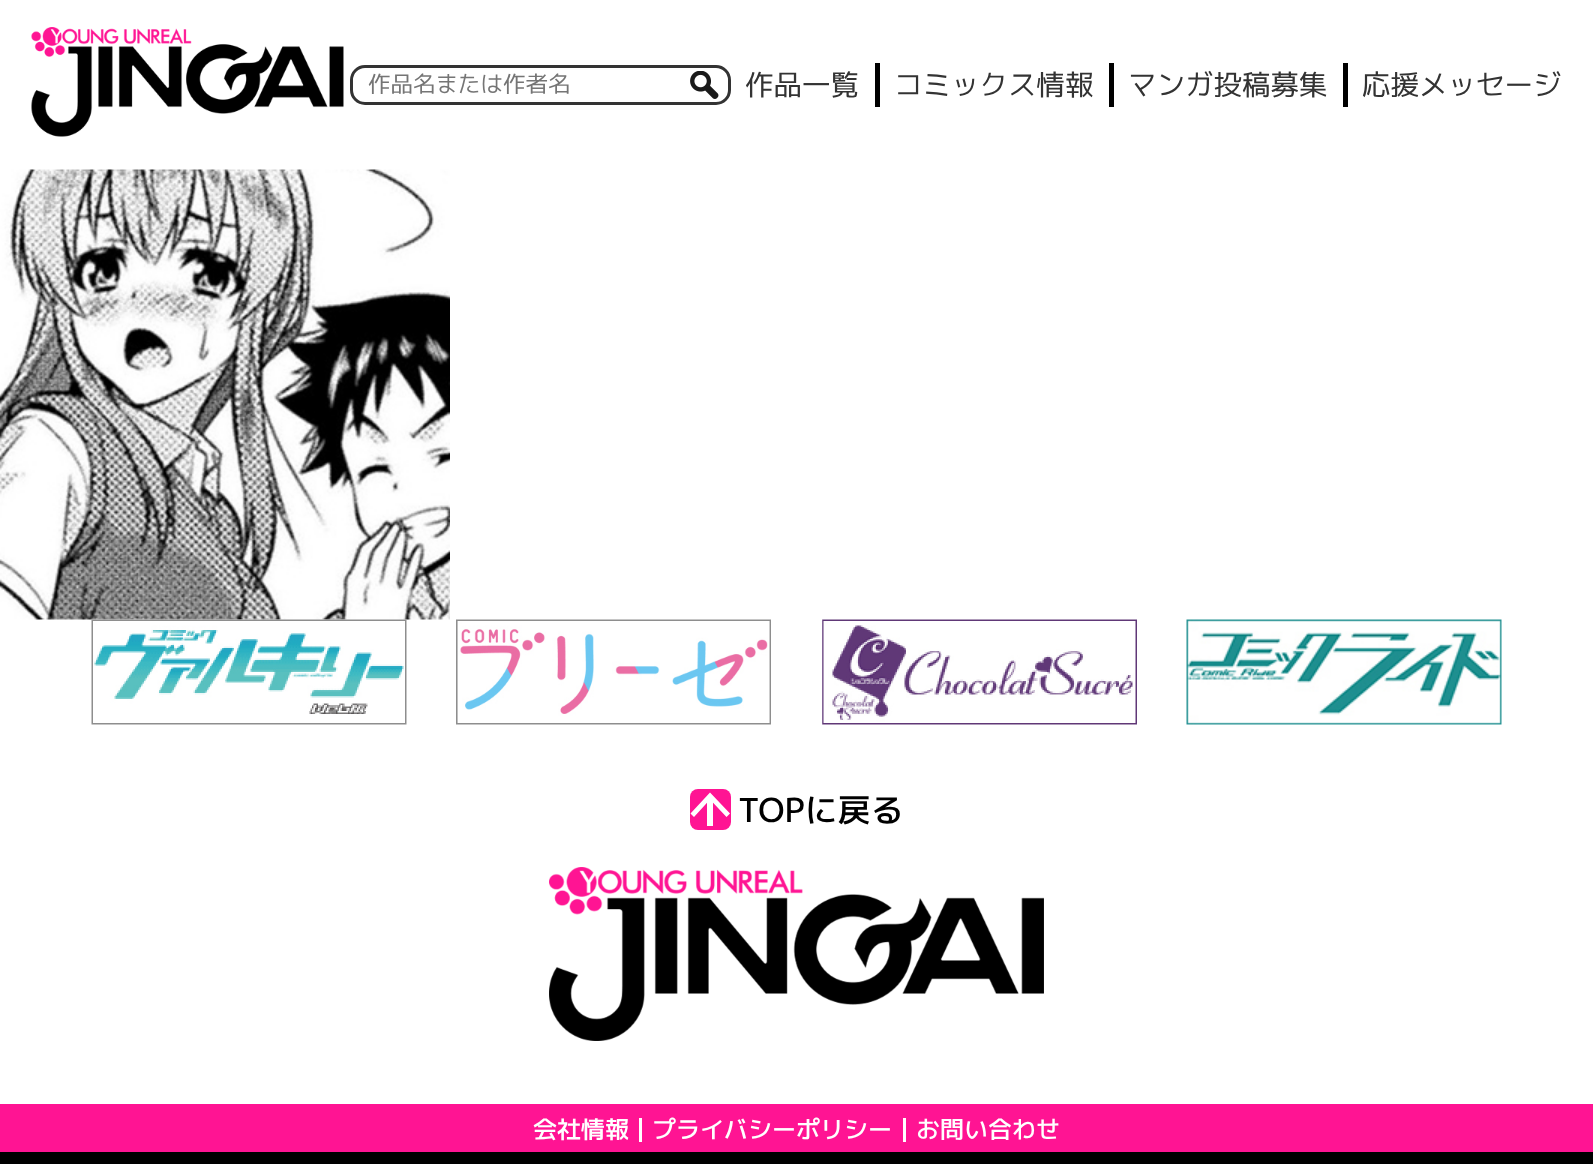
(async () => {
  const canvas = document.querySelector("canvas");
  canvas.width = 1593;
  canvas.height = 1164;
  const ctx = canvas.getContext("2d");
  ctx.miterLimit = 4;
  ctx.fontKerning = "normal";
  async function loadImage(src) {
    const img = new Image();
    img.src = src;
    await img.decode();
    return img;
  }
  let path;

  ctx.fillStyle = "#ffffff";
  ctx.fillRect(0, 0, 1593, 1164);
  ctx.drawImage(await loadImage("img/1.png"), 31, 27, 313, 110);
  ctx.beginPath();
  ctx.roundRect(351.5, 66.5, 378, 37, 13.5);
  ctx.strokeStyle = "#333333";
  ctx.lineWidth = 3;
  ctx.stroke();
  ctx.drawImage(await loadImage("img/2.png"), 690, 71, 29, 28);
  for (const [x, y, w, h, color] of [
    [875, 63, 5, 44, "#000000"],
    [1109, 63, 5, 44, "#000000"],
    [1343, 63, 5, 44, "#000000"],
  ]) {
    ctx.fillStyle = color;
    ctx.fillRect(x, y, w, h);
  }
  ctx.drawImage(await loadImage("img/3.png"), 0, 169, 450, 451);
  ctx.drawImage(await loadImage("img/4.png"), 91, 619, 316, 106);
  ctx.drawImage(await loadImage("img/5.png"), 456, 619, 315, 106);
  ctx.drawImage(await loadImage("img/6.png"), 822, 619, 315, 106);
  ctx.drawImage(await loadImage("img/7.png"), 1186, 619, 316, 106);
  ctx.fillStyle = "#ff1493";
  ctx.beginPath();
  ctx.roundRect(690, 789, 41, 41, 8);
  ctx.fill();
  ctx.fillStyle = "#ffffff";
  ctx.fillRect(707, 798, 6, 28);
  path = new Path2D("M730 813.5L726.5 817L710 799.5L694 817L690.5 813.5L710 792.5Z");
  ctx.fill(path);
  ctx.drawImage(await loadImage("img/8.png"), 549, 867, 495, 174);
  for (const [x, y, w, h, color] of [
    [0, 1104, 1593, 48, "#ff1493"],
    [639, 1118, 3, 24, "#ffffff"],
    [903, 1118, 3, 24, "#ffffff"],
    [0, 1152, 1593, 12, "#000000"],
  ]) {
    ctx.fillStyle = color;
    ctx.fillRect(x, y, w, h);
  }
  ctx.font = "22.5px 'M PLUS 1p'";
  ctx.fillStyle = "#757575";
  ctx.fillText("作品名または作者名", 368, 92);
  ctx.font = "28.5px 'M PLUS 1p'";
  ctx.fillStyle = "#333333";
  for (const [text, x, y] of [
    ["作品一覧", 745, 95],
    ["コミックス情報", 894, 95],
    ["マンガ投稿募集", 1128, 95],
    ["応援メッセージ", 1362, 95],
  ]) {
    ctx.fillText(text, x, y);
  }
  ctx.font = "500 33px 'M PLUS 1p'";
  ctx.fillStyle = "#000000";
  ctx.fillText("TOPに戻る", 738, 822);
  ctx.font = "500 24px 'M PLUS 1p'";
  ctx.fillStyle = "#ffffff";
  for (const [text, x, y] of [
    ["会社情報", 533, 1138],
    ["プライバシーポリシー", 652, 1138],
    ["お問い合わせ", 916, 1138],
  ]) {
    ctx.fillText(text, x, y);
  }
})();
